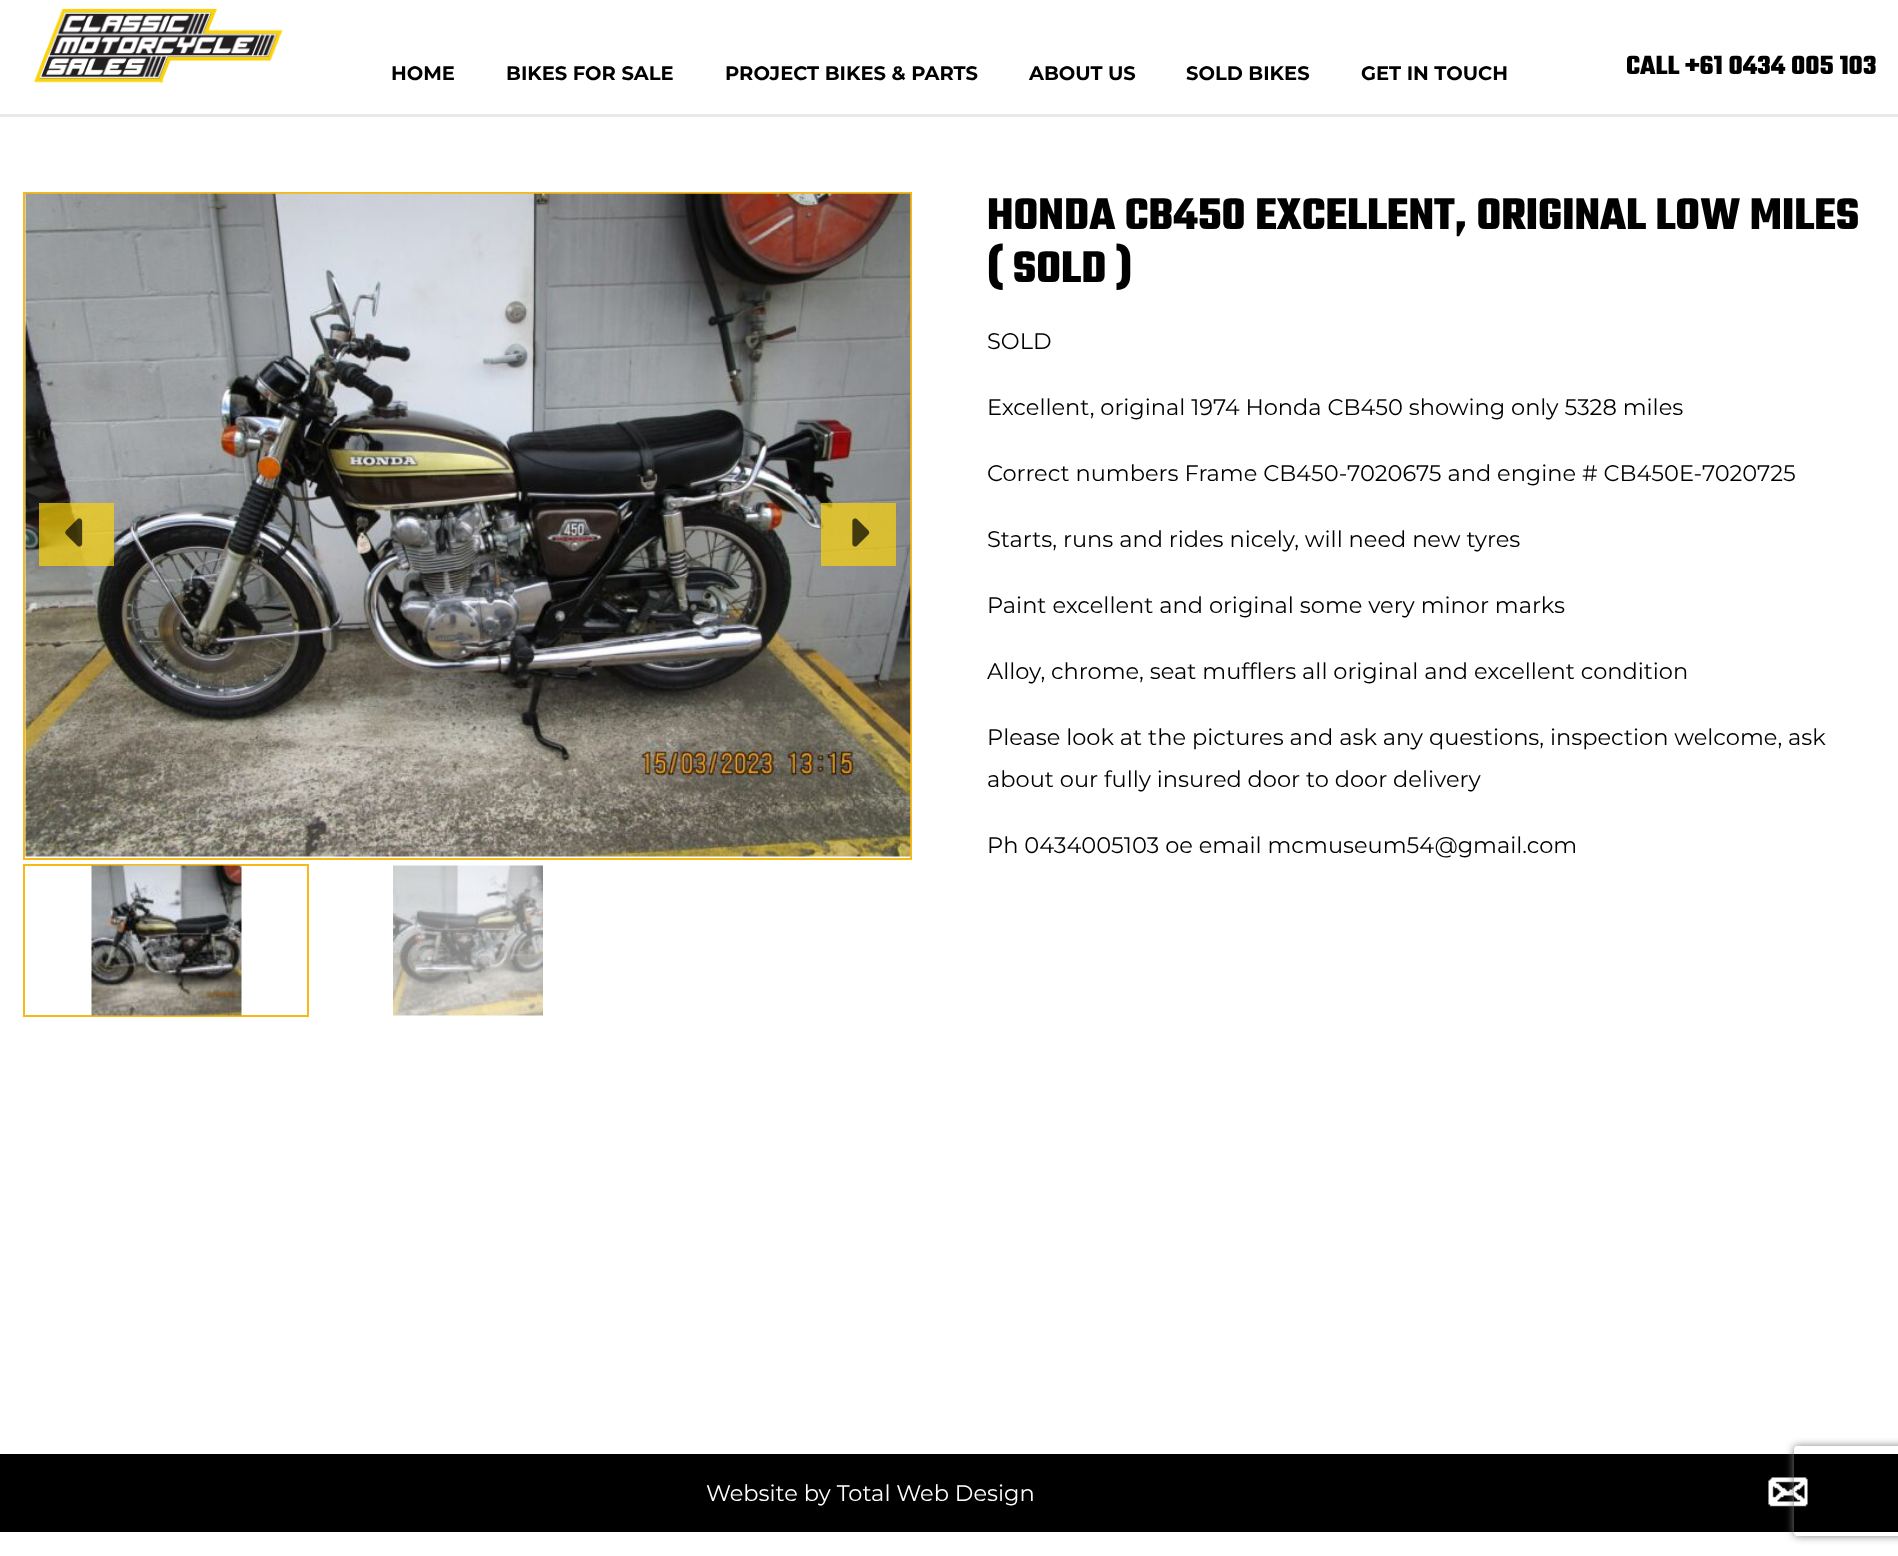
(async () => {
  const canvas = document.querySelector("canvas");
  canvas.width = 1898;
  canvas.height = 1556;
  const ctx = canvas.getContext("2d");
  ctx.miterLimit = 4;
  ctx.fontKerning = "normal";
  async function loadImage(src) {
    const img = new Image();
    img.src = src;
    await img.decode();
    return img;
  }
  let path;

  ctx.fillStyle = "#ffffff";
  ctx.fillRect(0, 0, 1898, 1556);
  ctx.fillStyle = "#e8e9e9";
  ctx.fillRect(0, 114, 1898, 3);
  ctx.drawImage(await loadImage("img/1.png"), 34, 8, 249, 75);
  ctx.strokeStyle = "#f7b818";
  ctx.lineWidth = 2;
  ctx.strokeRect(24, 193, 887, 666);
  ctx.drawImage(await loadImage("img/2.png"), 25, 193, 886, 664);
  ctx.fillStyle = "rgba(251, 211, 11, 0.7)";
  ctx.fillRect(39, 503, 75, 63);
  ctx.drawImage(await loadImage("img/3.png"), 65, 518, 18, 29);
  ctx.fillRect(821, 503, 75, 63);
  ctx.drawImage(await loadImage("img/4.png"), 852, 518, 18, 29);
  ctx.strokeRect(24, 865, 284, 151);
  ctx.drawImage(await loadImage("img/5.png"), 91, 865, 151, 151);
  ctx.drawImage(await loadImage("img/6.png"), 393, 865, 150, 151);
  ctx.fillStyle = "#000000";
  ctx.fillRect(0, 1454, 1898, 78);
  ctx.drawImage(await loadImage("img/7.png"), 1768, 1477, 40, 30);
  ctx.save();
  path = new Path2D("M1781 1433H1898V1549H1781ZM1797 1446H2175C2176.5 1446 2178 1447.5 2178 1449V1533C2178 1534.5 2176.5 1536 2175 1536H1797C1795.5 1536 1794 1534.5 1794 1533V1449C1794 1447.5 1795.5 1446 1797 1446Z");
  ctx.clip(path, "evenodd");
  ctx.fillStyle = "#808080";
  ctx.filter = "blur(4px)";
  ctx.beginPath();
  ctx.roundRect(1794, 1446, 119, 90, 3);
  ctx.fill();
  ctx.filter = "none";
  ctx.restore();
  ctx.font = "bold 19.5px Montserrat";
  for (const [text, x, y] of [
    ["HOME", 391, 80],
    ["BIKES FOR SALE", 506, 80],
    ["PROJECT BIKES & PARTS", 725, 80],
    ["ABOUT US", 1029, 80],
    ["SOLD BIKES", 1186, 80],
    ["GET IN TOUCH", 1361, 80],
  ]) {
    ctx.fillText(text, x, y);
  }
  ctx.font = "bold 28.5px Teko";
  ctx.fillText("CALL +61 0434 005 103", 1626, 74);
  ctx.font = "bold 48px Teko";
  ctx.fillText("HONDA CB450 EXCELLENT, ORIGINAL LOW MILES", 987, 229);
  ctx.fillText("( SOLD )", 987, 282);
  ctx.font = "22.5px Montserrat";
  for (const [text, x, y] of [
    ["SOLD", 987, 349],
    ["Excellent, original 1974 Honda CB450 showing only 5328 miles", 987, 415],
    ["Correct numbers Frame CB450-7020675 and engine # CB450E-7020725", 987, 481],
    ["Starts, runs and rides nicely, will need new tyres", 987, 547],
    ["Paint excellent and original some very minor marks", 987, 613],
    ["Alloy, chrome, seat mufflers all original and excellent condition", 987, 679],
    ["Please look at the pictures and ask any questions, inspection welcome, ask", 987, 745],
    ["about our fully insured door to door delivery", 987, 787],
    ["Ph 0434005103 oe email mcmuseum54@gmail.com", 987, 853],
  ]) {
    ctx.fillText(text, x, y);
  }
  ctx.fillStyle = "#ffffff";
  ctx.fillText("Website by Total Web Design", 706, 1501);
})();
